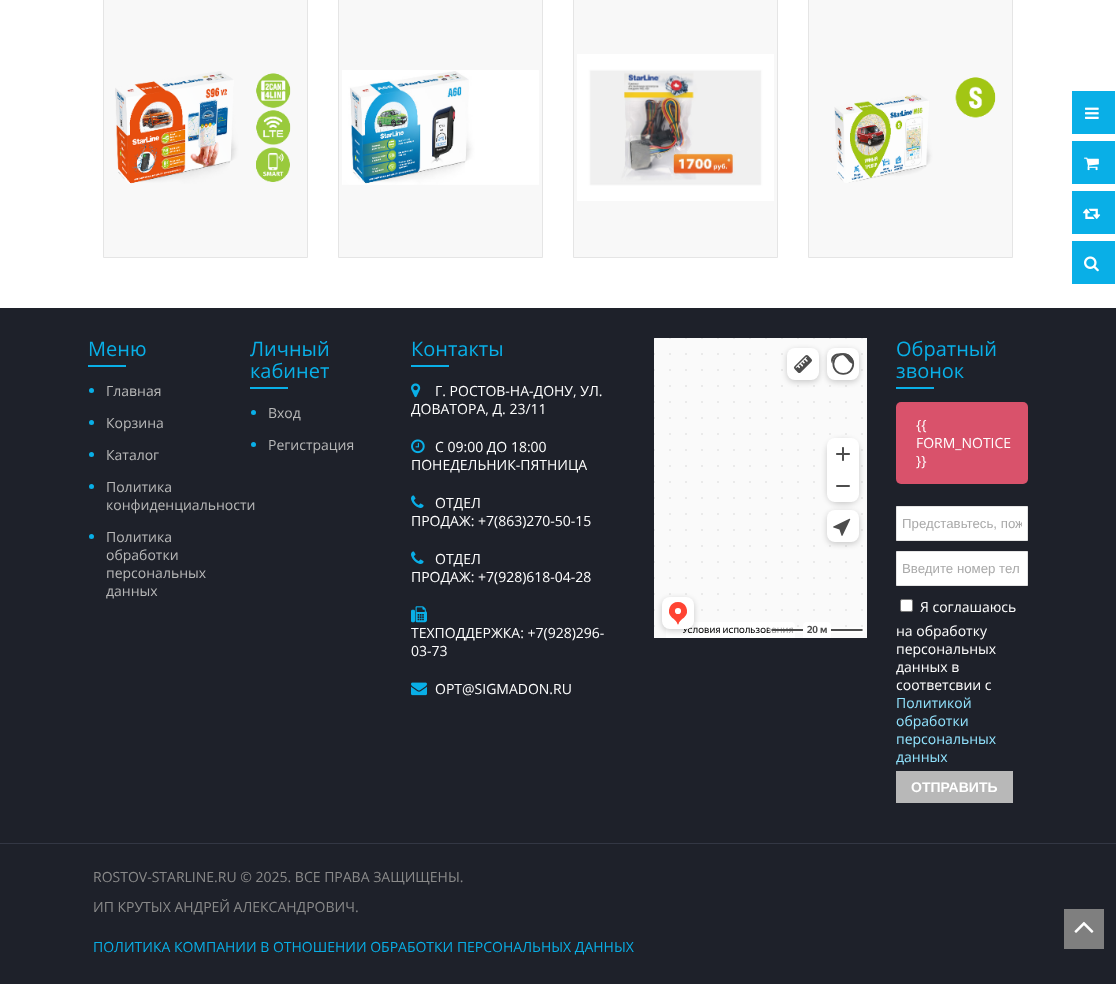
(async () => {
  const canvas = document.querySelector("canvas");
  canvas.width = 1116;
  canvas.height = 984;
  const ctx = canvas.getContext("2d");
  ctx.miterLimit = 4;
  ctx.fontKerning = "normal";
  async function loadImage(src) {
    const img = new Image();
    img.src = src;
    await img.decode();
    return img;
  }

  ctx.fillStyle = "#ffffff";
  ctx.fillRect(0, 0, 1116, 984);
  ctx.fillStyle = "#f8f8f8";
  ctx.beginPath();
  ctx.rect(103.5, -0.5, 204, 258);
  ctx.fill();
  ctx.strokeStyle = "#e5e5e5";
  ctx.stroke();
  ctx.drawImage(await loadImage("img/1.png"), 115, 71, 176, 113);
  ctx.beginPath();
  ctx.rect(338.5, -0.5, 204, 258);
  ctx.fill();
  ctx.stroke();
  ctx.drawImage(await loadImage("img/2.png"), 342, 70, 197, 115);
  ctx.beginPath();
  ctx.rect(573.5, -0.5, 204, 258);
  ctx.fill();
  ctx.stroke();
  ctx.drawImage(await loadImage("img/3.png"), 577, 54, 197, 147);
  ctx.beginPath();
  ctx.rect(808.5, -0.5, 204, 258);
  ctx.fill();
  ctx.stroke();
  ctx.drawImage(await loadImage("img/4.png"), 834, 77, 162, 106);
  ctx.fillStyle = "#09afe7";
  ctx.fillRect(1072, 91, 43, 43);
  ctx.drawImage(await loadImage("img/5.png"), 1085, 107, 14, 12);
  ctx.fillRect(1072, 141, 43, 43);
  ctx.drawImage(await loadImage("img/6.png"), 1084, 157, 15, 14);
  ctx.fillRect(1072, 191, 43, 43);
  ctx.drawImage(await loadImage("img/7.png"), 1083, 208, 18, 11);
  ctx.fillRect(1072, 241, 43, 43);
  ctx.drawImage(await loadImage("img/8.png"), 1084, 256, 15, 16);
  ctx.fillStyle = "#1e212a";
  ctx.fillRect(0, 308, 1116, 535);
  ctx.fillStyle = "#09afe7";
  ctx.fillRect(88, 365, 38, 2);
  ctx.beginPath();
  ctx.arc(91.5, 390.5, 2.5, 0, Math.PI * 2);
  ctx.fill();
  ctx.beginPath();
  ctx.arc(91.5, 422.5, 2.5, 0, Math.PI * 2);
  ctx.fill();
  ctx.beginPath();
  ctx.arc(91.5, 454.5, 2.5, 0, Math.PI * 2);
  ctx.fill();
  ctx.beginPath();
  ctx.arc(91.5, 486.5, 2.5, 0, Math.PI * 2);
  ctx.fill();
  ctx.beginPath();
  ctx.arc(91.5, 536.5, 2.5, 0, Math.PI * 2);
  ctx.fill();
  ctx.fillRect(250, 387, 38, 2);
  ctx.beginPath();
  ctx.arc(253.5, 412.5, 2.5, 0, Math.PI * 2);
  ctx.fill();
  ctx.beginPath();
  ctx.arc(253.5, 444.5, 2.5, 0, Math.PI * 2);
  ctx.fill();
  ctx.fillRect(411, 365, 38, 2);
  ctx.drawImage(await loadImage("img/9.png"), 411, 383, 10, 15);
  ctx.drawImage(await loadImage("img/10.png"), 411, 439, 14, 15);
  ctx.drawImage(await loadImage("img/11.png"), 411, 495, 13, 13);
  ctx.drawImage(await loadImage("img/11.png"), 411, 551, 13, 13);
  ctx.drawImage(await loadImage("img/12.png"), 411, 606, 16, 17);
  ctx.drawImage(await loadImage("img/13.png"), 411, 682, 16, 14);
  ctx.drawImage(await loadImage("img/14.png"), 654, 338, 213, 300);
  ctx.fillRect(896, 387, 38, 2);
  ctx.fillStyle = "#d9526b";
  ctx.beginPath();
  ctx.roundRect(896, 402, 132, 82, 5);
  ctx.fill();
  ctx.fillStyle = "#ffffff";
  ctx.beginPath();
  ctx.rect(896.5, 506.5, 131, 34);
  ctx.fill();
  ctx.stroke();
  ctx.beginPath();
  ctx.rect(896.5, 551.5, 131, 34);
  ctx.fill();
  ctx.stroke();
  ctx.beginPath();
  ctx.roundRect(900.5, 599.5, 12, 12, 1.5);
  ctx.fill();
  ctx.strokeStyle = "#767676";
  ctx.stroke();
  for (const [x, y, w, h, color] of [
    [896, 771, 117, 32, "#b8b8b8"],
    [0, 844, 1116, 140, "#1e212a"],
    [0, 843, 1116, 1, "#333744"],
    [1064, 909, 40, 40, "#7f7f7f"],
  ]) {
    ctx.fillStyle = color;
    ctx.fillRect(x, y, w, h);
  }
  ctx.drawImage(await loadImage("img/15.png"), 1074, 921, 20, 12);
  ctx.font = "20px Open Sans";
  ctx.fillStyle = "#09afe7";
  ctx.fillText("Меню", 88, 356);
  ctx.font = "14px Open Sans";
  ctx.fillStyle = "#b8b8b8";
  for (const [text, x, y] of [
    ["Главная", 106, 396],
    ["Корзина", 106, 428],
    ["Каталог", 106, 460],
    ["Политика", 106, 492],
    ["конфиденциальности", 106, 510],
    ["Политика", 106, 542],
    ["обработки", 106, 560],
    ["персональных", 106, 578],
    ["данных", 106, 596],
  ]) {
    ctx.fillText(text, x, y);
  }
  ctx.font = "20px Open Sans";
  ctx.fillStyle = "#09afe7";
  ctx.fillText("Личный", 250, 356);
  ctx.fillText("кабинет", 250, 378);
  ctx.font = "14px Open Sans";
  ctx.fillStyle = "#b8b8b8";
  ctx.fillText("Вход", 268, 418);
  ctx.fillText("Регистрация", 268, 450);
  ctx.font = "20px Open Sans";
  ctx.fillStyle = "#09afe7";
  ctx.fillText("Контакты", 411, 356);
  ctx.font = "14px Open Sans";
  ctx.fillStyle = "#ffffff";
  for (const [text, x, y] of [
    ["Г. РОСТОВ-НА-ДОНУ, УЛ.", 435, 396],
    ["ДОВАТОРА, Д. 23/11", 411, 414],
    ["С 09:00 ДО 18:00", 435, 452],
    ["ПОНЕДЕЛЬНИК-ПЯТНИЦА", 411, 470],
    ["ОТДЕЛ", 435, 508],
    ["ПРОДАЖ: +7(863)270-50-15", 411, 526],
    ["ОТДЕЛ", 435, 564],
    ["ПРОДАЖ: +7(928)618-04-28", 411, 582],
    ["ТЕХПОДДЕРЖКА: +7(928)296-", 411, 638],
    ["03-73", 411, 656],
    ["OPT@SIGMADON.RU", 435, 694],
  ]) {
    ctx.fillText(text, x, y);
  }
  ctx.font = "20px Open Sans";
  ctx.fillStyle = "#09afe7";
  ctx.fillText("Обратный", 896, 356);
  ctx.fillText("звонок", 896, 378);
  ctx.font = "14px Open Sans";
  ctx.fillStyle = "#ffffff";
  for (const [text, x, y] of [
    ["{{", 916, 430],
    ["FORM_NOTICE", 916, 448],
    ["}}", 916, 466],
  ]) {
    ctx.fillText(text, x, y);
  }
  ctx.save();
  ctx.beginPath();
  ctx.rect(902, 516, 120, 15);
  ctx.clip();
  ctx.font = "13.25px Liberation Sans";
  ctx.fillStyle = "#a9a9a9";
  ctx.fillText("Представьтесь, пож", 902, 528);
  ctx.restore();
  ctx.font = "13.25px Liberation Sans";
  ctx.fillStyle = "#a9a9a9";
  ctx.fillText("Введите номер тел", 902, 573);
  ctx.font = "14px Open Sans";
  ctx.fillStyle = "#ffffff";
  for (const [text, x, y] of [
    ["Я соглашаюсь", 920, 612],
    ["на обработку", 896, 636],
    ["персональных", 896, 654],
    ["данных в", 896, 672],
    ["соответсвии с", 896, 690],
  ]) {
    ctx.fillText(text, x, y);
  }
  ctx.fillStyle = "#91e3fe";
  for (const [text, x, y] of [
    ["Политикой", 896, 708],
    ["обработки", 896, 726],
    ["персональных", 896, 744],
    ["данных", 896, 762],
  ]) {
    ctx.fillText(text, x, y);
  }
  ctx.font = "bold 14px Liberation Sans";
  ctx.fillStyle = "#ffffff";
  ctx.fillText("ОТПРАВИТЬ", 911, 792);
  ctx.font = "14px Open Sans";
  ctx.fillStyle = "#8a8a8a";
  ctx.fillText("ROSTOV-STARLINE.RU © 2025. ВСЕ ПРАВА ЗАЩИЩЕНЫ.", 93, 882);
  ctx.fillText("ИП КРУТЫХ АНДРЕЙ АЛЕКСАНДРОВИЧ.", 93, 912);
  ctx.fillStyle = "#09afe7";
  ctx.fillText("ПОЛИТИКА КОМПАНИИ В ОТНОШЕНИИ ОБРАБОТКИ ПЕРСОНАЛЬНЫХ ДАННЫХ", 93, 952);
})();
